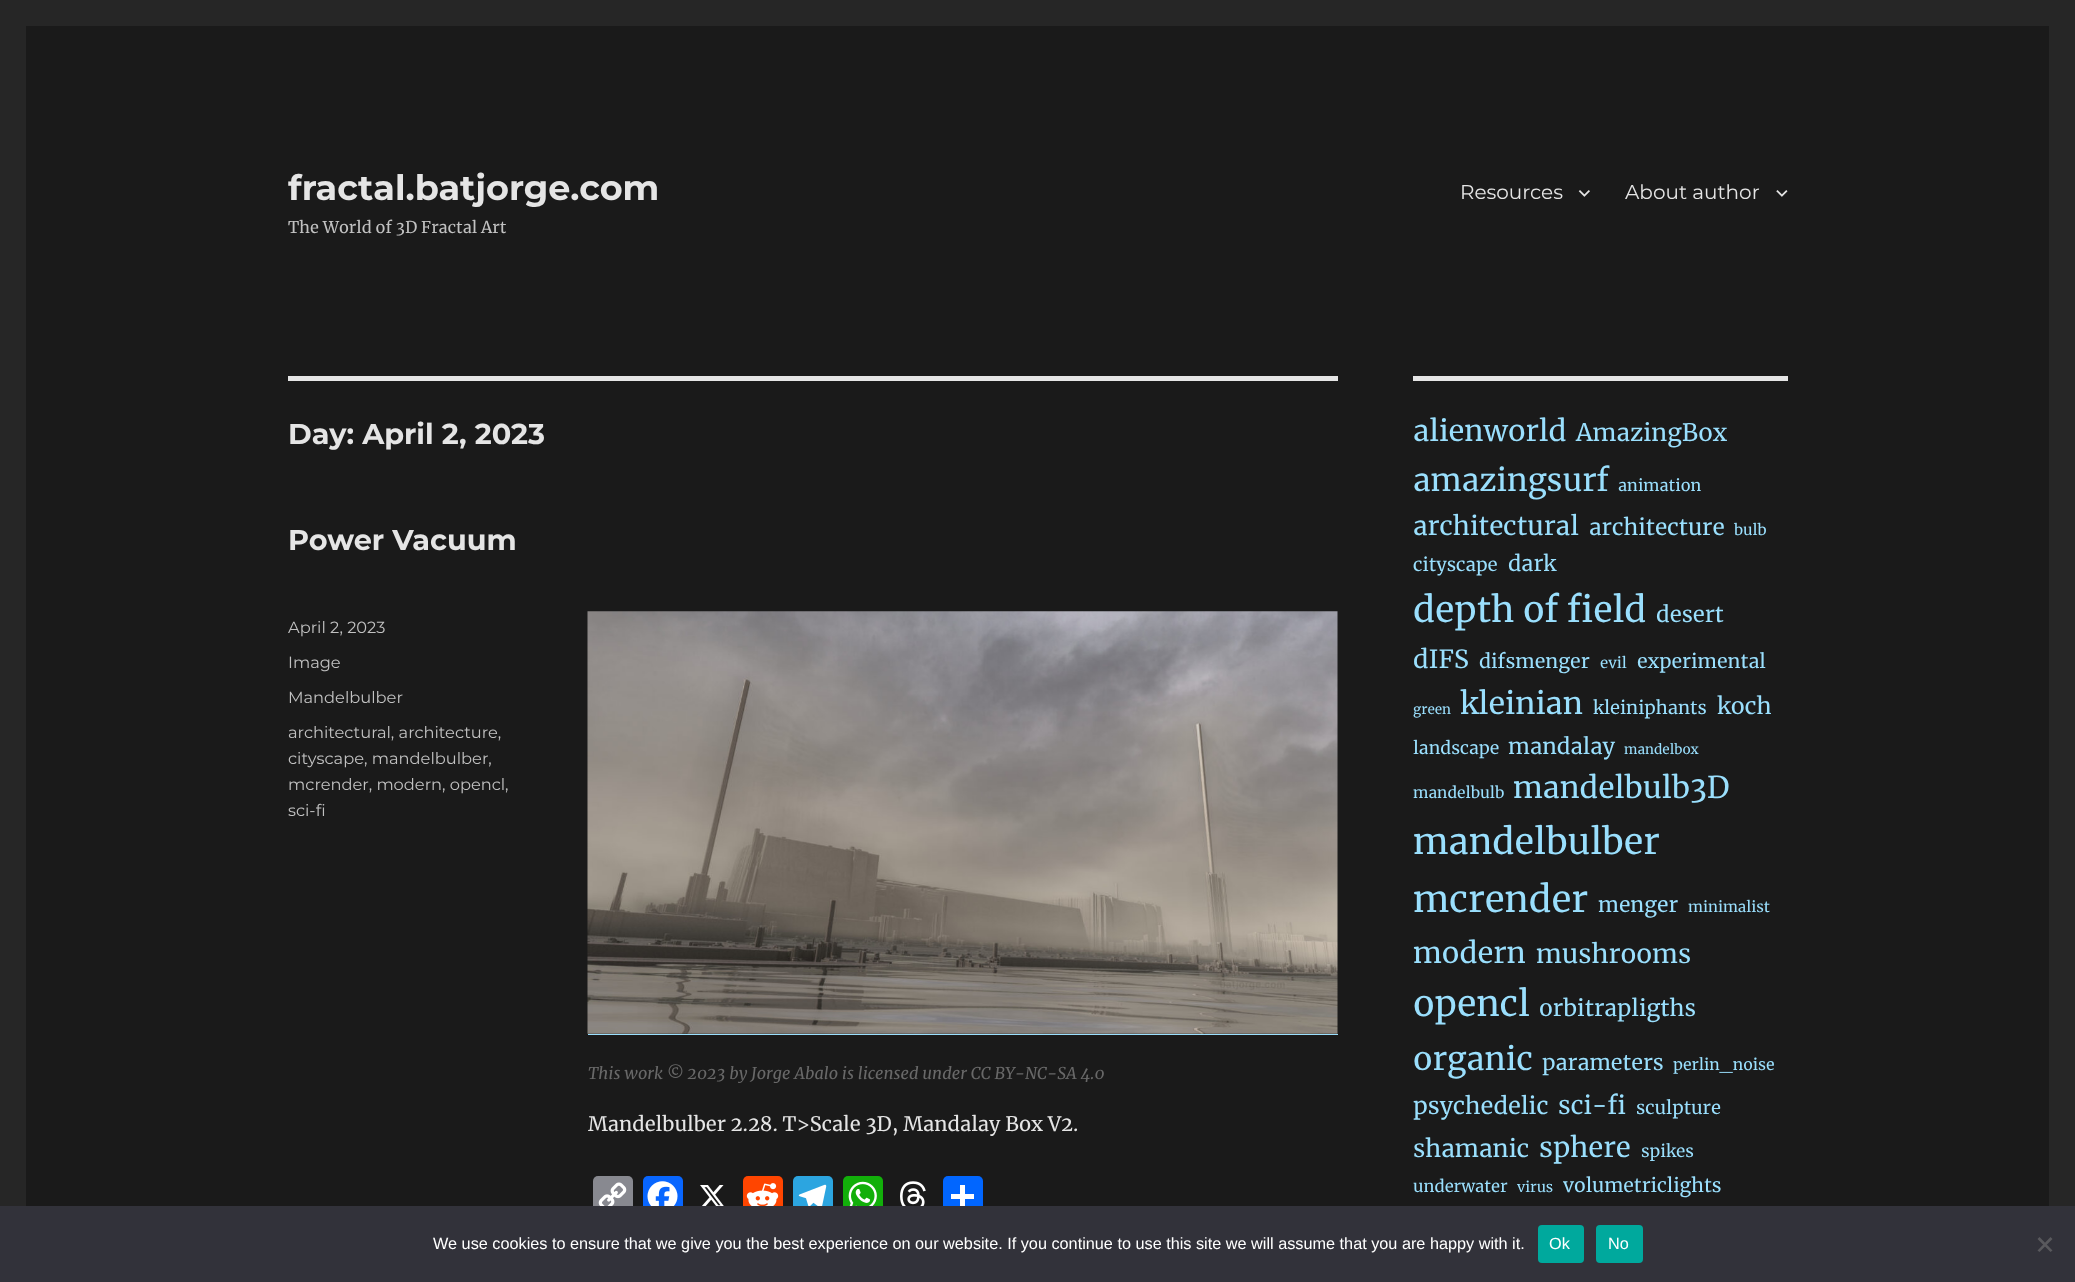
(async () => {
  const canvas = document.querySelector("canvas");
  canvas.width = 2075;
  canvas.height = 1282;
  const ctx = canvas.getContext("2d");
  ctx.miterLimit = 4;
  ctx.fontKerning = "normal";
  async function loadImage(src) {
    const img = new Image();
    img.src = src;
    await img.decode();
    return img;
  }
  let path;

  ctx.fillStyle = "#262626";
  ctx.fillRect(0, 0, 2075, 1282);
  ctx.fillStyle = "#1a1a1a";
  ctx.fillRect(26, 26, 2023, 1180);
  ctx.drawImage(await loadImage("img/1.png"), 1578, 190, 12, 7);
  ctx.drawImage(await loadImage("img/2.png"), 1776, 190, 12, 7);
  ctx.fillStyle = "#e5e5e5";
  ctx.fillRect(288, 376, 1050, 5);
  ctx.fillStyle = "#9adffd";
  path = new Path2D("M588 1034V1035H1338V613V1034Z");
  ctx.fill(path);
  ctx.drawImage(await loadImage("img/3.png"), 587, 611, 751, 423);
  ctx.fillStyle = "#888990";
  ctx.beginPath();
  ctx.roundRect(593, 1176, 40, 40, 5);
  ctx.fill();
  ctx.drawImage(await loadImage("img/4.png"), 598, 1182, 29, 24);
  ctx.fillStyle = "#0866ff";
  ctx.beginPath();
  ctx.roundRect(643, 1176, 40, 40, 5);
  ctx.fill();
  ctx.drawImage(await loadImage("img/5.png"), 647, 1181, 31, 25);
  ctx.drawImage(await loadImage("img/6.png"), 700, 1185, 24, 21);
  ctx.fillStyle = "#ff4500";
  ctx.beginPath();
  ctx.roundRect(743, 1176, 40, 40, 5);
  ctx.fill();
  ctx.drawImage(await loadImage("img/7.png"), 746, 1183, 33, 23);
  ctx.fillStyle = "#2ca5e0";
  ctx.beginPath();
  ctx.roundRect(793, 1176, 40, 40, 5);
  ctx.fill();
  ctx.drawImage(await loadImage("img/8.png"), 798, 1184, 29, 22);
  ctx.fillStyle = "#12af0a";
  ctx.beginPath();
  ctx.roundRect(843, 1176, 40, 40, 5);
  ctx.fill();
  ctx.drawImage(await loadImage("img/9.png"), 848, 1181, 29, 25);
  ctx.drawImage(await loadImage("img/10.png"), 900, 1181, 26, 25);
  ctx.fillStyle = "#0166ff";
  ctx.beginPath();
  ctx.roundRect(943, 1176, 40, 40, 5);
  ctx.fill();
  for (const [x, y, w, h, color] of [
    [960, 1185, 5, 23, "#ffffff"],
    [951, 1194, 23, 5, "#ffffff"],
    [1413, 376, 375, 5, "#e5e5e5"],
    [0, 1206, 2075, 76, "#32323a"],
  ]) {
    ctx.fillStyle = color;
    ctx.fillRect(x, y, w, h);
  }
  ctx.fillStyle = "#00a99d";
  ctx.beginPath();
  ctx.roundRect(1538, 1225, 46, 38, 4);
  ctx.fill();
  ctx.beginPath();
  ctx.roundRect(1596, 1225, 47, 38, 4);
  ctx.fill();
  ctx.fillStyle = "#59595d";
  path = new Path2D("M2050.5 1237L2052.5 1239L2039.5 1252L2037.5 1250.5Z");
  ctx.fill(path);
  path = new Path2D("M2037.5 1239L2039.5 1237L2052.5 1250.5L2050.5 1252Z");
  ctx.fill(path);
  ctx.save();
  ctx.beginPath();
  ctx.rect(288, 166, 371, 70);
  ctx.clip();
  ctx.font = "100 35px Montserrat";
  ctx.fillStyle = "#e5e5e5";
  ctx.fillText("fractal.batjorge.com", 288, 200);
  ctx.restore();
  ctx.font = "16.25px Merriweather";
  ctx.fillStyle = "#c1c1c1";
  ctx.fillText("The World of 3D Fractal Art", 288, 233);
  ctx.font = "100 20px 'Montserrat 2'";
  ctx.fillStyle = "#e5e5e5";
  ctx.fillText("Resources", 1460, 199);
  ctx.fillText("About author", 1625, 199);
  ctx.font = "100 28.75px Montserrat";
  ctx.fillText("Day: April 2, 2023", 288, 444);
  ctx.fillText("Power Vacuum", 288, 550);
  ctx.font = "100 16.25px 'Montserrat 2'";
  ctx.fillStyle = "#c1c1c1";
  for (const [text, x, y] of [
    ["April 2, 2023", 288, 633],
    ["Image", 288, 668],
    ["Mandelbulber", 288, 703],
    ["architectural, architecture,", 288, 738],
    ["cityscape, mandelbulber,", 288, 764],
    ["mcrender, modern, opencl,", 288, 790],
    ["sci-fi", 288, 816],
  ]) {
    ctx.fillText(text, x, y);
  }
  ctx.font = "italic 16.25px Merriweather";
  ctx.fillStyle = "#686868";
  ctx.fillText("This work © 2023 by Jorge Abalo is licensed under CC BY-NC-SA 4.0", 588, 1079);
  ctx.font = "20px Merriweather";
  ctx.fillStyle = "#e5e5e5";
  ctx.fillText("Mandelbulber 2.28. T>Scale 3D, Mandalay Box V2.", 588, 1131);
  ctx.font = "29px Merriweather";
  ctx.fillStyle = "#9adffd";
  ctx.fillText("alienworld", 1413, 441);
  ctx.font = "24px Merriweather";
  ctx.fillText("AmazingBox", 1576, 441);
  ctx.font = "31.25px Merriweather";
  ctx.fillText("amazingsurf", 1413, 491);
  ctx.font = "16.25px Merriweather";
  ctx.fillText("animation", 1618, 491);
  ctx.font = "26px Merriweather";
  ctx.fillText("architectural", 1413, 535);
  ctx.font = "22.5px Merriweather";
  ctx.fillText("architecture", 1589, 535);
  ctx.font = "15px Merriweather";
  ctx.fillText("bulb", 1734, 535);
  ctx.font = "18.5px Merriweather";
  ctx.fillText("cityscape", 1413, 571);
  ctx.font = "21.5px Merriweather";
  ctx.fillText("dark", 1508, 571);
  ctx.font = "35.5px Merriweather";
  ctx.fillText("depth of field", 1413, 622);
  ctx.font = "22px Merriweather";
  ctx.fillText("desert", 1656, 622);
  ctx.font = "25px Merriweather";
  ctx.fillText("dIFS", 1413, 668);
  ctx.font = "19.5px Merriweather";
  ctx.fillText("difsmenger", 1479, 668);
  ctx.font = "15px Merriweather";
  ctx.fillText("evil", 1600, 668);
  ctx.font = "19.5px Merriweather";
  ctx.fillText("experimental", 1637, 668);
  ctx.font = "13.5px Merriweather";
  ctx.fillText("green", 1413, 714);
  ctx.font = "30.5px Merriweather";
  ctx.fillText("kleinian", 1460, 714);
  ctx.font = "18.25px Merriweather";
  ctx.fillText("kleiniphants", 1593, 714);
  ctx.font = "23px Merriweather";
  ctx.fillText("koch", 1717, 714);
  ctx.font = "17.5px Merriweather";
  ctx.fillText("landscape", 1413, 754);
  ctx.font = "22px Merriweather";
  ctx.fillText("mandalay", 1508, 754);
  ctx.font = "13.5px Merriweather";
  ctx.fillText("mandelbox", 1624, 754);
  ctx.font = "15.5px Merriweather";
  ctx.fillText("mandelbulb", 1413, 798);
  ctx.font = "30px Merriweather";
  ctx.fillText("mandelbulb3D", 1513, 798);
  ctx.font = "35.75px Merriweather";
  ctx.fillText("mandelbulber", 1413, 854);
  ctx.font = "36.5px Merriweather";
  ctx.fillText("mcrender", 1413, 912);
  ctx.font = "21px Merriweather";
  ctx.fillText("menger", 1598, 912);
  ctx.font = "15px Merriweather";
  ctx.fillText("minimalist", 1688, 912);
  ctx.font = "29px Merriweather";
  ctx.fillText("modern", 1413, 963);
  ctx.font = "26px Merriweather";
  ctx.fillText("mushrooms", 1536, 963);
  ctx.font = "35.5px Merriweather";
  ctx.fillText("opencl", 1413, 1016);
  ctx.font = "22.75px Merriweather";
  ctx.fillText("orbitrapligths", 1539, 1016);
  ctx.font = "32px Merriweather";
  ctx.fillText("organic", 1413, 1070);
  ctx.font = "21.5px Merriweather";
  ctx.fillText("parameters", 1542, 1070);
  ctx.font = "15.75px Merriweather";
  ctx.fillText("perlin_noise", 1673, 1070);
  ctx.font = "23.5px Merriweather";
  ctx.fillText("psychedelic", 1413, 1114);
  ctx.font = "25px Merriweather";
  ctx.fillText("sci-fi", 1558, 1114);
  ctx.font = "18.25px Merriweather";
  ctx.fillText("sculpture", 1636, 1114);
  ctx.font = "24.25px Merriweather";
  ctx.fillText("shamanic", 1413, 1157);
  ctx.font = "27.5px Merriweather";
  ctx.fillText("sphere", 1539, 1157);
  ctx.font = "17px Merriweather";
  ctx.fillText("spikes", 1641, 1157);
  ctx.font = "16.5px Merriweather";
  ctx.fillText("underwater", 1413, 1192);
  ctx.font = "14.5px Merriweather";
  ctx.fillText("virus", 1517, 1192);
  ctx.font = "19.25px Merriweather";
  ctx.fillText("volumetriclights", 1563, 1192);
  ctx.font = "16.25px Liberation Sans";
  ctx.fillStyle = "#ffffff";
  for (const [text, x, y] of [
    ["We use cookies to ensure that we give you the best experience on our website. If you continue to use this site we will assume that you are happy with it.", 433, 1249],
    ["Ok", 1549, 1249],
    ["No", 1608, 1249],
  ]) {
    ctx.fillText(text, x, y);
  }
})();
